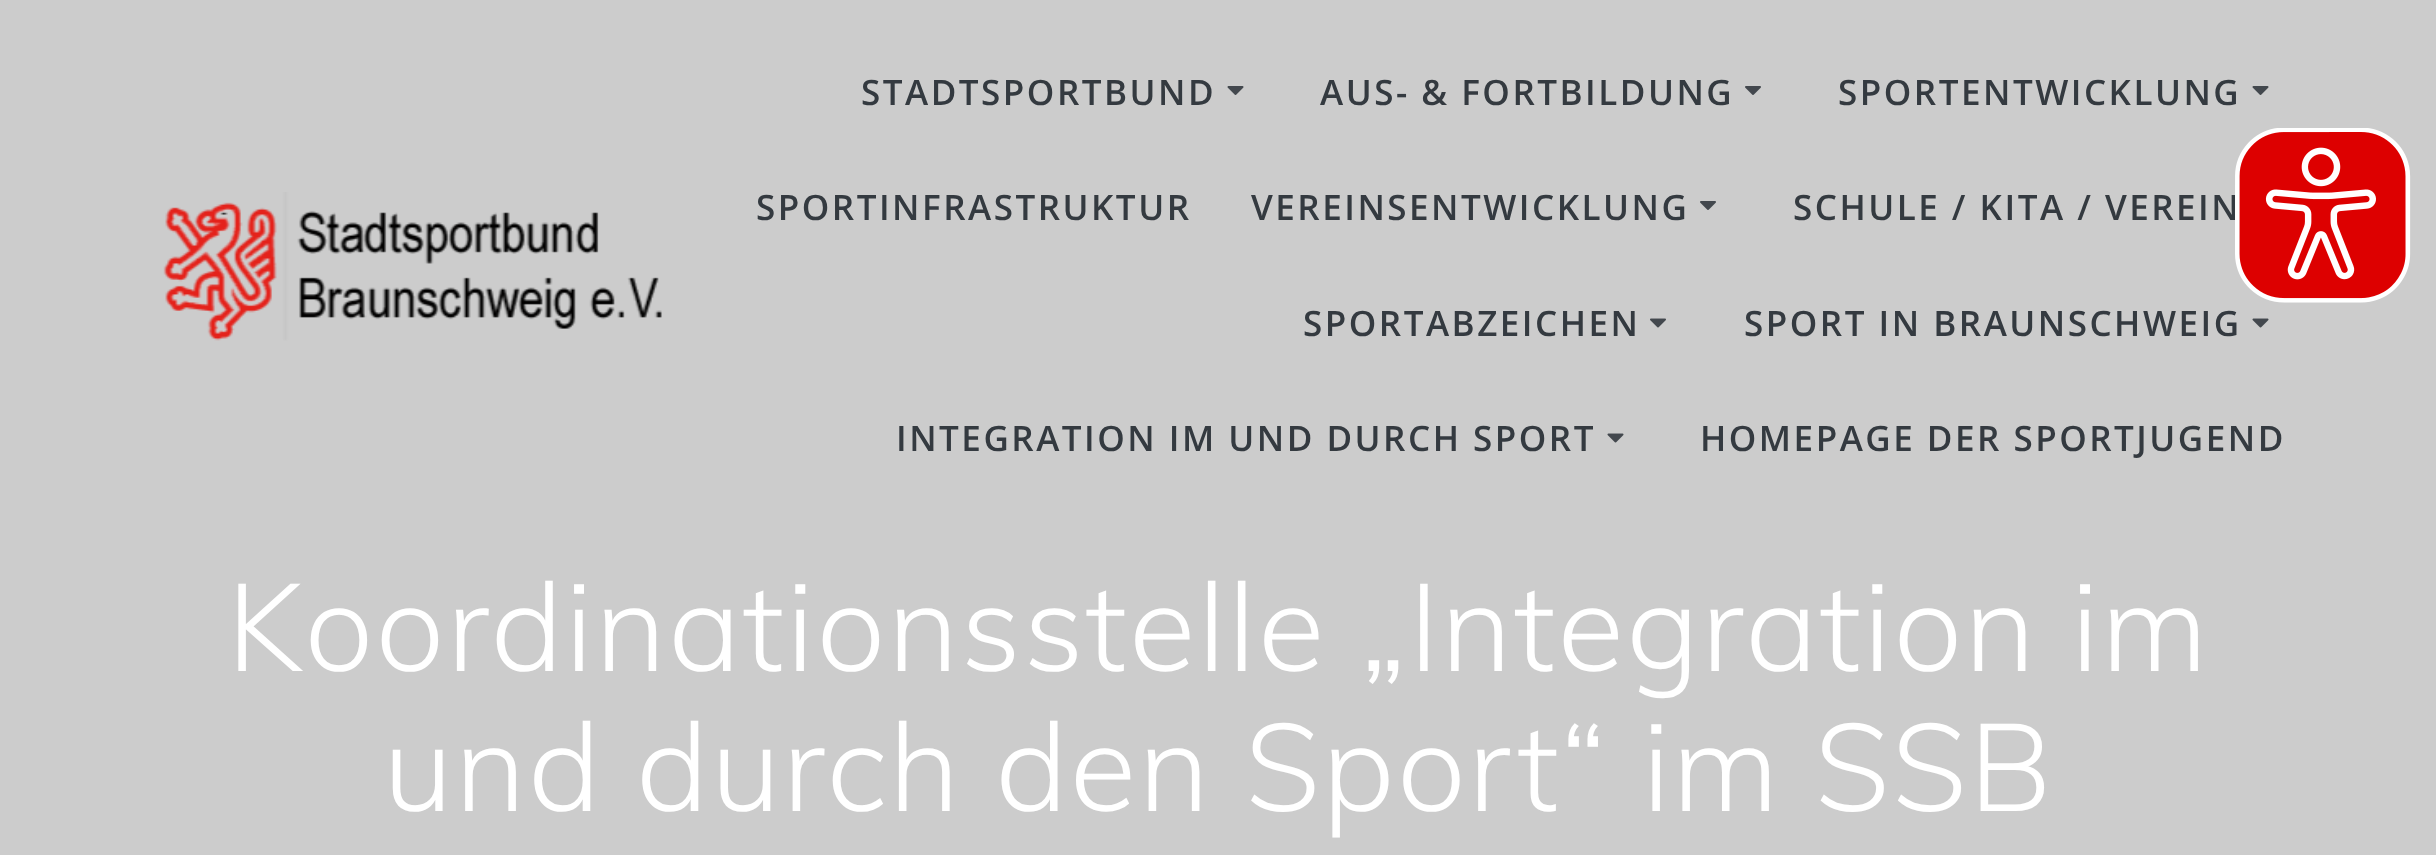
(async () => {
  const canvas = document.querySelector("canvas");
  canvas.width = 2436;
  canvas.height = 855;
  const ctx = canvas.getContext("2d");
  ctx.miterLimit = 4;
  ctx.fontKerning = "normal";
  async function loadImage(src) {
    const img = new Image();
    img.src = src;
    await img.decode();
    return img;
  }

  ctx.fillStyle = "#cccccc";
  ctx.fillRect(0, 0, 2436, 855);
  ctx.drawImage(await loadImage("img/1.png"), 163, 192, 499, 149);
  ctx.drawImage(await loadImage("img/2.png"), 1227, 86, 17, 9);
  ctx.drawImage(await loadImage("img/3.png"), 1745, 86, 16, 9);
  ctx.drawImage(await loadImage("img/2.png"), 2252, 86, 17, 9);
  ctx.drawImage(await loadImage("img/3.png"), 1700, 201, 16, 9);
  ctx.drawImage(await loadImage("img/4.png"), 1650, 318, 16, 10);
  ctx.drawImage(await loadImage("img/5.png"), 2252, 318, 17, 10);
  ctx.drawImage(await loadImage("img/5.png"), 1607, 433, 17, 10);
  ctx.letterSpacing = "2.5px";
  ctx.font = "600 35px Open Sans";
  ctx.fillStyle = "#343a40";
  for (const [text, x, y] of [
    ["STADTSPORTBUND", 861, 105],
    ["AUS- & FORTBILDUNG", 1320, 105],
    ["SPORTENTWICKLUNG", 1838, 105],
    ["SPORTINFRASTRUKTUR", 756, 220],
    ["VEREINSENTWICKLUNG", 1251, 220],
    ["SCHULE / KITA / VEREIN", 1793, 220],
    ["SPORTABZEICHEN", 1303, 336],
    ["SPORT IN BRAUNSCHWEIG", 1744, 336],
    ["INTEGRATION IM UND DURCH SPORT", 896, 451],
    ["HOMEPAGE DER SPORTJUGEND", 1700, 451],
  ]) {
    ctx.fillText(text, x, y);
  }
  ctx.drawImage(await loadImage("img/6.png"), 2235, 128, 176, 175);
  ctx.letterSpacing = "2.25px";
  ctx.font = "300 122.5px Muli";
  ctx.fillStyle = "#ffffff";
  ctx.fillText("Koordinationsstelle „Integration im", 227, 671);
  ctx.fillText("und durch den Sport“ im SSB", 383, 811);
})();
